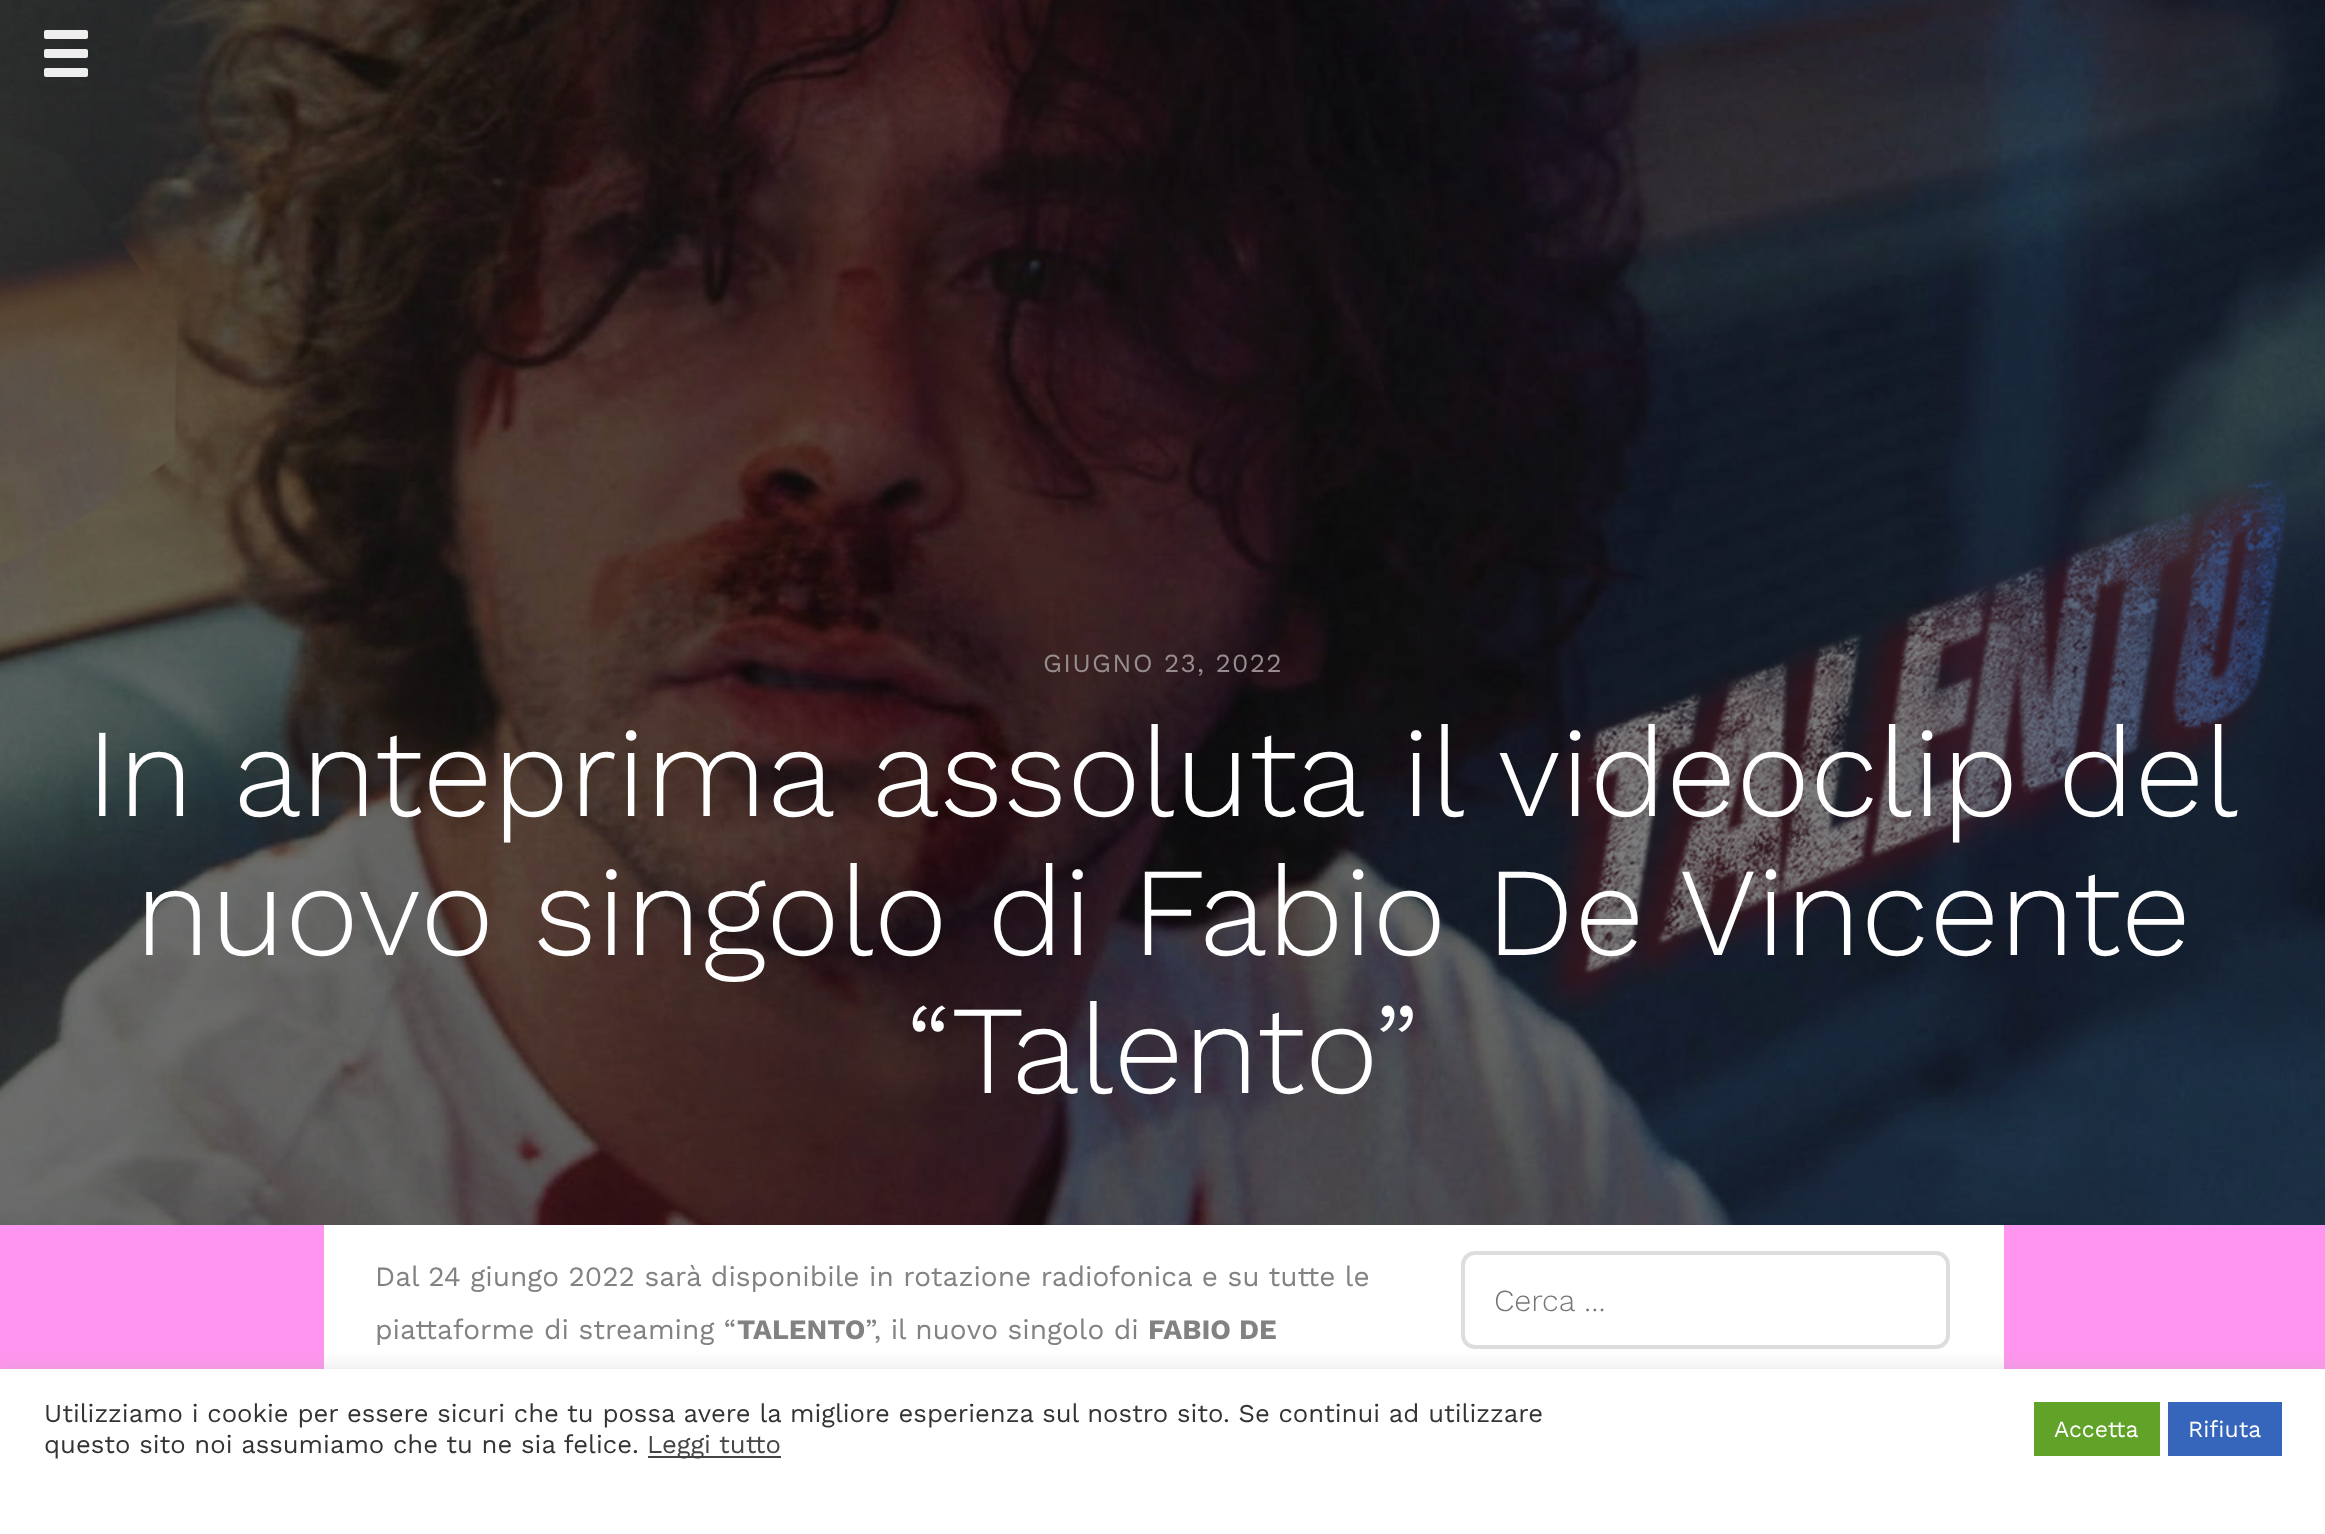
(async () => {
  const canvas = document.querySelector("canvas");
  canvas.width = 2325;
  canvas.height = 1534;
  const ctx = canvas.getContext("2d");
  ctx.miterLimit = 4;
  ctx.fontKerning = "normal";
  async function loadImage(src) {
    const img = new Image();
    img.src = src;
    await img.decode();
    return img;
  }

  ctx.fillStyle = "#ff95ee";
  ctx.fillRect(0, 0, 2325, 1534);
  ctx.drawImage(await loadImage("img/1.png"), 0, 0, 2325, 1225);
  ctx.fillStyle = "#eeeeee";
  ctx.beginPath();
  ctx.roundRect(44, 49, 44, 9, 2);
  ctx.fill();
  ctx.beginPath();
  ctx.roundRect(44, 30, 44, 9, 2);
  ctx.fill();
  ctx.beginPath();
  ctx.roundRect(44, 68, 44, 9, 2);
  ctx.fill();
  ctx.fillStyle = "#ffffff";
  ctx.fillRect(324, 1225, 1680, 144);
  ctx.beginPath();
  ctx.roundRect(1463, 1253, 485, 94, 12);
  ctx.strokeStyle = "#dddddd";
  ctx.lineWidth = 4;
  ctx.stroke();
  ctx.fillStyle = "rgba(172, 171, 171, 0.3)";
  ctx.filter = "blur(9px)";
  ctx.beginPath();
  ctx.rect(0, 1367, 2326, 166);
  ctx.fill();
  ctx.filter = "none";
  for (const [x, y, w, h, color] of [
    [0, 1369, 2325, 165, "#ffffff"],
    [648, 1456, 133, 2, "#444444"],
    [2034, 1402, 126, 54, "#61a229"],
    [2168, 1402, 114, 54, "#3566bb"],
  ]) {
    ctx.fillStyle = color;
    ctx.fillRect(x, y, w, h);
  }
  ctx.letterSpacing = "1.25px";
  ctx.font = "26.25px Work Sans";
  ctx.fillStyle = "#978d8f";
  ctx.fillText("GIUGNO 23, 2022", 1043, 672);
  ctx.letterSpacing = "0px";
  ctx.font = "300 126px Work Sans";
  ctx.fillStyle = "#ffffff";
  for (const [text, x, y] of [
    ["In anteprima assoluta il videoclip del", 86, 816],
    ["nuovo singolo di Fabio De Vincente", 135, 955],
    ["“Talento”", 906, 1093],
  ]) {
    ctx.fillText(text, x, y);
  }
  ctx.font = "28px Work Sans";
  ctx.fillStyle = "#828282";
  ctx.fillText("Dal 24 giungo 2022 sarà disponibile in rotazione radiofonica e su tutte le", 375, 1286);
  ctx.fillText("piattaforme di streaming “", 375, 1339);
  ctx.font = "bold 28px Work Sans";
  ctx.fillText("TALENTO", 737, 1339);
  ctx.font = "28px Work Sans";
  ctx.fillText("”, il nuovo singolo di", 865, 1339);
  ctx.font = "bold 28px Work Sans";
  ctx.fillText("FABIO DE", 1148, 1339);
  ctx.font = "300 30.5px Work Sans";
  ctx.fillStyle = "#757575";
  ctx.fillText("Cerca …", 1494, 1311);
  ctx.font = "25.67px Work Sans";
  ctx.fillStyle = "#333333";
  ctx.fillText("Utilizziamo i cookie per essere sicuri che tu possa avere la migliore esperienza sul nostro sito. Se continui ad utilizzare", 44, 1422);
  ctx.fillText("questo sito noi assumiamo che tu ne sia felice.", 44, 1453);
  ctx.fillStyle = "#444444";
  ctx.fillText("Leggi tutto", 647, 1453);
  ctx.font = "23px Work Sans";
  ctx.fillStyle = "#ffffff";
  ctx.fillText("Accetta", 2054, 1437);
  ctx.fillText("Rifiuta", 2188, 1437);
})();
